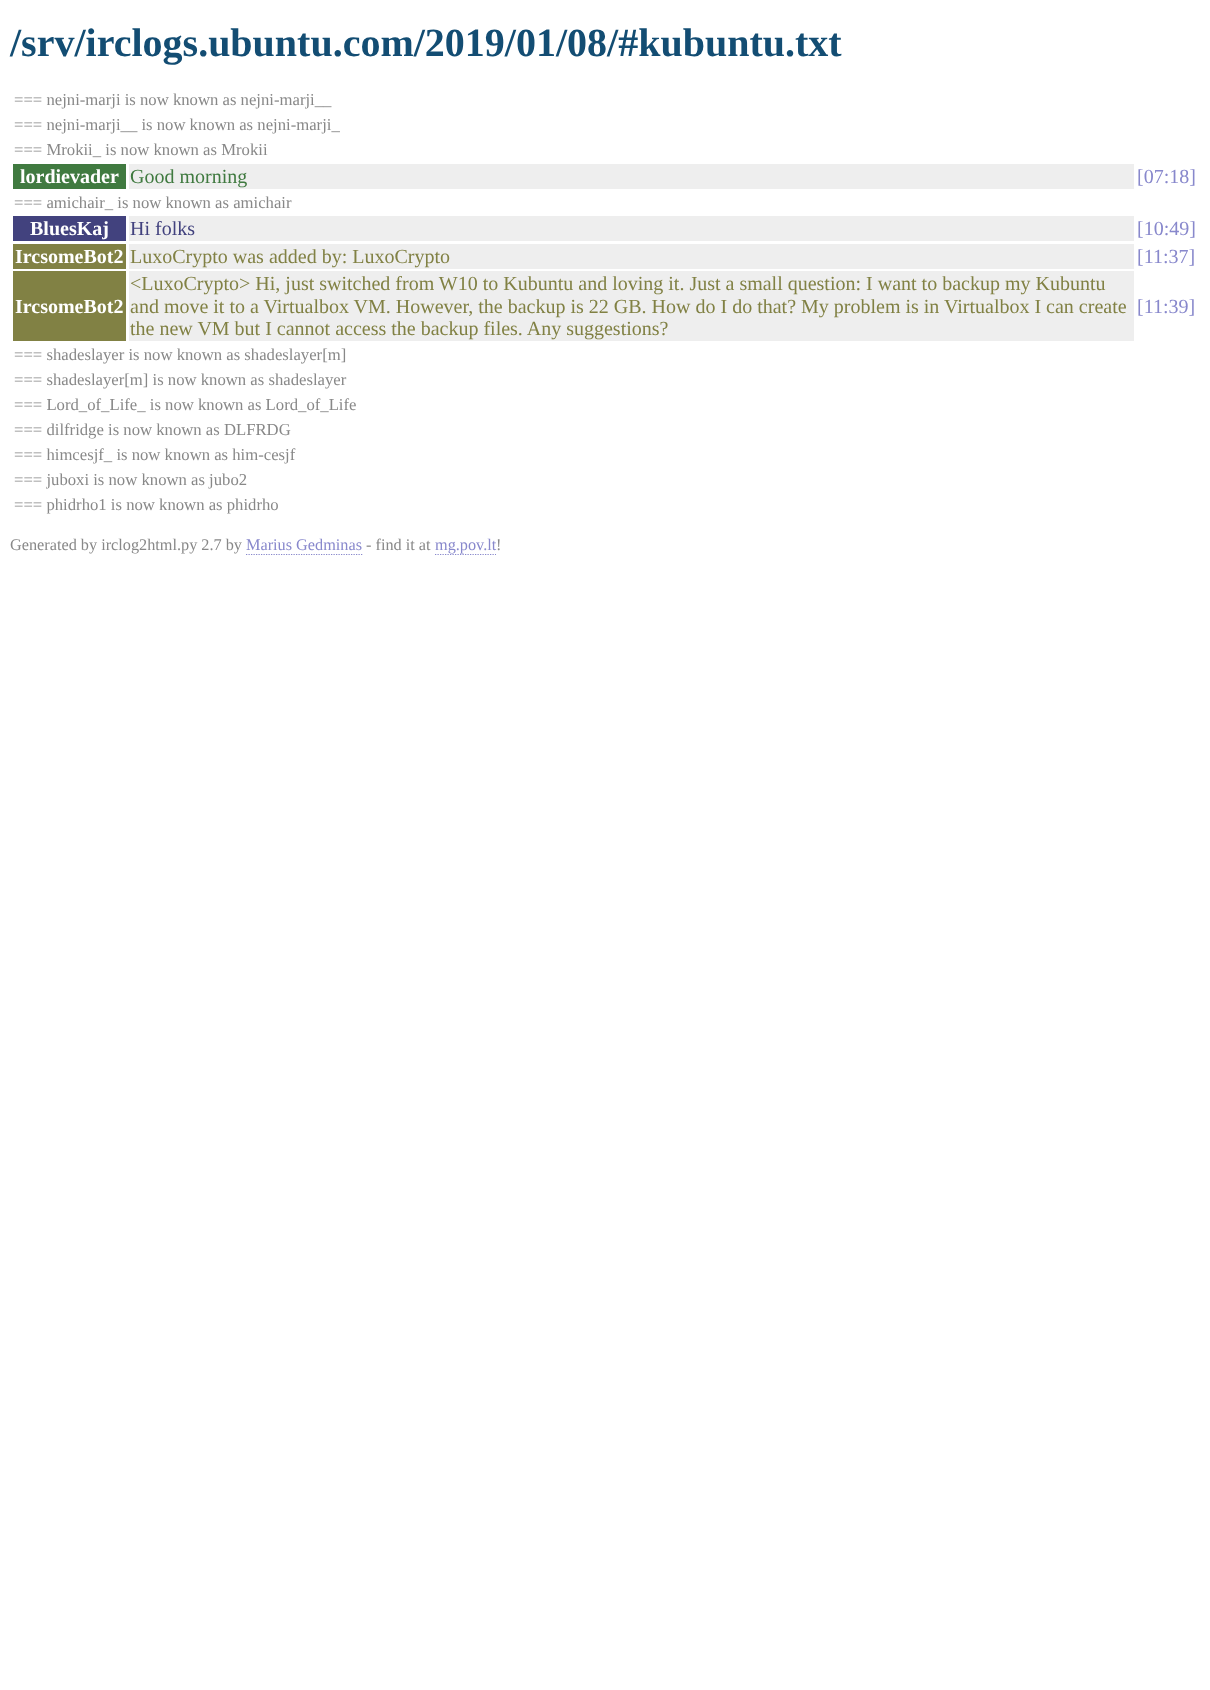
(async () => {
  const canvas = document.querySelector("canvas");
  canvas.width = 1210;
  canvas.height = 1690;
  const ctx = canvas.getContext("2d");
  ctx.miterLimit = 4;
  ctx.fontKerning = "normal";
  let path;

  ctx.fillStyle = "#ffffff";
  ctx.fillRect(0, 0, 1210, 1690);
  for (const [x, y, w, h, color] of [
    [13, 164, 113, 25, "#407a40"],
    [129, 164, 1005, 25, "#eeeeee"],
    [13, 216, 113, 25, "#42427e"],
    [129, 216, 1005, 25, "#eeeeee"],
    [13, 244, 113, 25, "#818144"],
    [129, 244, 1005, 25, "#eeeeee"],
    [13, 271, 113, 70, "#818144"],
    [129, 271, 1005, 70, "#eeeeee"],
  ]) {
    ctx.fillStyle = color;
    ctx.fillRect(x, y, w, h);
  }
  path = new Path2D("M246 554.5H362.5");
  ctx.strokeStyle = "#8888cc";
  ctx.lineWidth = 1.2;
  ctx.setLineDash([1.25, 1.25]);
  ctx.stroke(path);
  path = new Path2D("M435 554.5H496");
  ctx.stroke(path);
  ctx.font = "bold 40px Liberation Serif";
  ctx.fillStyle = "#134d73";
  ctx.fillText("/srv/irclogs.ubuntu.com/2019/01/08/#kubuntu.txt", 10, 56);
  ctx.font = "16.7px Liberation Serif";
  ctx.fillStyle = "#888888";
  for (const [text, x, y] of [
    ["=== nejni-marji is now known as nejni-marji__", 14, 105],
    ["=== nejni-marji__ is now known as nejni-marji_", 14, 130],
    ["=== Mrokii_ is now known as Mrokii", 14, 155],
  ]) {
    ctx.fillText(text, x, y);
  }
  ctx.font = "bold 20px Liberation Serif";
  ctx.fillStyle = "#ffffff";
  ctx.fillText("lordievader", 20, 183);
  ctx.font = "20px Liberation Serif";
  ctx.fillStyle = "#407a40";
  ctx.fillText("Good morning", 130, 183);
  ctx.fillStyle = "#8888cc";
  ctx.fillText("[07:18]", 1137, 183);
  ctx.font = "16.7px Liberation Serif";
  ctx.fillStyle = "#888888";
  ctx.fillText("=== amichair_ is now known as amichair", 14, 208);
  ctx.font = "bold 20px Liberation Serif";
  ctx.fillStyle = "#ffffff";
  ctx.fillText("BluesKaj", 30, 235);
  ctx.font = "20px Liberation Serif";
  ctx.fillStyle = "#42427e";
  ctx.fillText("Hi folks", 130, 235);
  ctx.fillStyle = "#8888cc";
  ctx.fillText("[10:49]", 1137, 235);
  ctx.font = "bold 20px Liberation Serif";
  ctx.fillStyle = "#ffffff";
  ctx.fillText("IrcsomeBot2", 15, 263);
  ctx.font = "20px Liberation Serif";
  ctx.fillStyle = "#818144";
  ctx.fillText("LuxoCrypto was added by: LuxoCrypto", 130, 263);
  ctx.fillStyle = "#8888cc";
  ctx.fillText("[11:37]", 1137, 263);
  ctx.font = "bold 20px Liberation Serif";
  ctx.fillStyle = "#ffffff";
  ctx.fillText("IrcsomeBot2", 15, 313);
  ctx.font = "20px Liberation Serif";
  ctx.fillStyle = "#818144";
  for (const [text, x, y] of [
    ["<LuxoCrypto> Hi, just switched from W10 to Kubuntu and loving it. Just a small question: I want to backup my Kubuntu", 130, 290],
    ["and move it to a Virtualbox VM. However, the backup is 22 GB. How do I do that? My problem is in Virtualbox I can create", 130, 313],
    ["the new VM but I cannot access the backup files. Any suggestions?", 130, 335],
  ]) {
    ctx.fillText(text, x, y);
  }
  ctx.fillStyle = "#8888cc";
  ctx.fillText("[11:39]", 1137, 313);
  ctx.font = "16.7px Liberation Serif";
  ctx.fillStyle = "#888888";
  for (const [text, x, y] of [
    ["=== shadeslayer is now known as shadeslayer[m]", 14, 360],
    ["=== shadeslayer[m] is now known as shadeslayer", 14, 385],
    ["=== Lord_of_Life_ is now known as Lord_of_Life", 14, 410],
    ["=== dilfridge is now known as DLFRDG", 14, 435],
    ["=== himcesjf_ is now known as him-cesjf", 14, 460],
    ["=== juboxi is now known as jubo2", 14, 485],
    ["=== phidrho1 is now known as phidrho", 14, 510],
  ]) {
    ctx.fillText(text, x, y);
  }
  ctx.font = "16.25px Liberation Serif";
  ctx.fillText("Generated by irclog2html.py 2.7 by", 10, 550);
  ctx.fillStyle = "#8888cc";
  ctx.fillText("Marius Gedminas", 246, 550);
  ctx.fillStyle = "#888888";
  ctx.fillText("- find it at", 366, 550);
  ctx.fillStyle = "#8888cc";
  ctx.fillText("mg.pov.lt", 435, 550);
  ctx.fillStyle = "#888888";
  ctx.fillText("!", 496, 550);
})();
